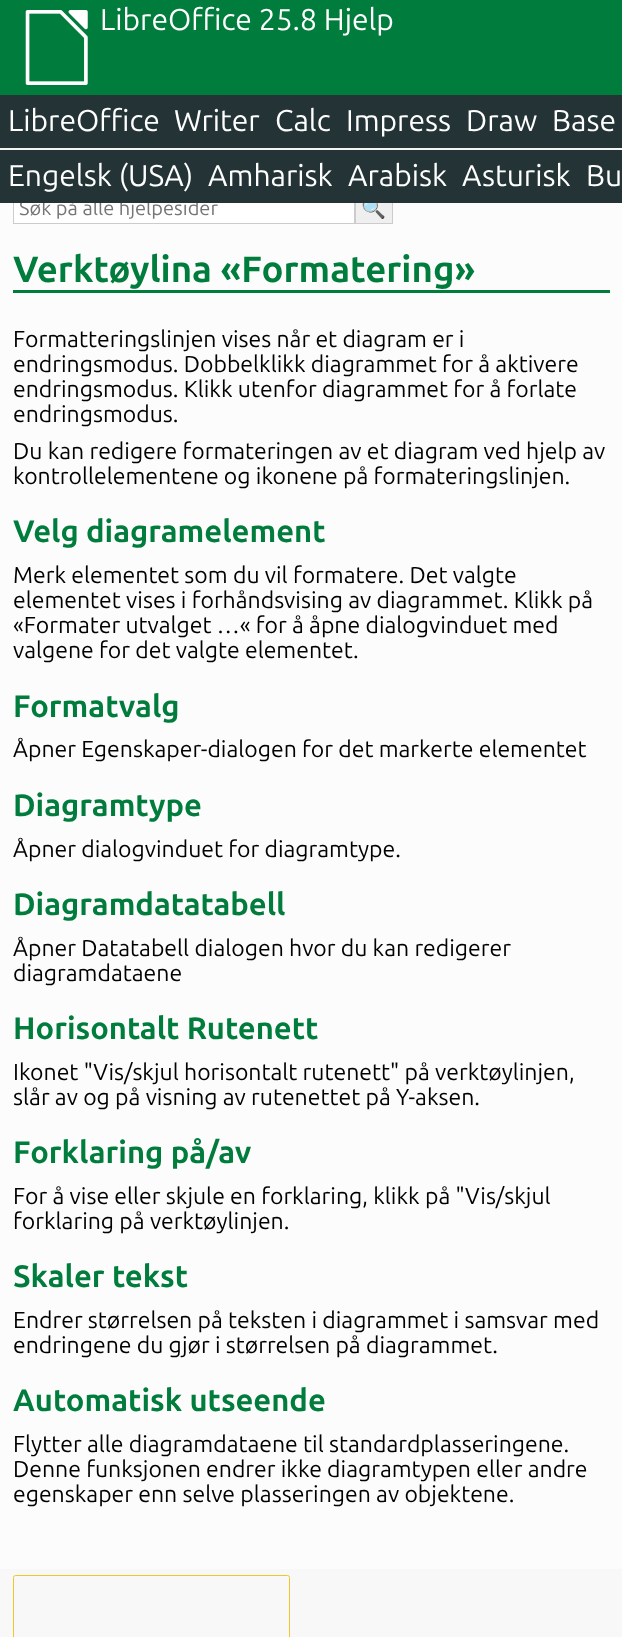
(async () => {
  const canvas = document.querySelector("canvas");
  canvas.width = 622;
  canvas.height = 1637;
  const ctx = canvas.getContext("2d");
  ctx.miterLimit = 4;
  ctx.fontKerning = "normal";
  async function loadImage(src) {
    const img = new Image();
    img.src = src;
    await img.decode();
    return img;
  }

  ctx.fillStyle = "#f7f8f7";
  ctx.fillRect(0, 0, 622, 1637);
  ctx.fillStyle = "#007c3c";
  ctx.fillRect(0, 0, 622, 95);
  ctx.drawImage(await loadImage("img/1.png"), 25, 10, 63, 75);
  for (const [x, y, w, h, color] of [
    [0, 95, 622, 53, "#233336"],
    [0, 148, 622, 2, "#f3f3f3"],
    [0, 203, 622, 1366, "#fcfcfc"],
    [14, 203, 340, 20, "#ffffff"],
  ]) {
    ctx.fillStyle = color;
    ctx.fillRect(x, y, w, h);
  }
  ctx.strokeStyle = "#cccccc";
  ctx.strokeRect(13.5, 191.5, 341, 32);
  ctx.fillStyle = "#efefef";
  ctx.fillRect(356, 203, 36, 20);
  ctx.strokeRect(355.5, 191.5, 37, 32);
  ctx.fillStyle = "#007c3c";
  ctx.fillRect(13, 290, 597, 3);
  ctx.beginPath();
  ctx.roundRect(13.5, 1575.5, 276, 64, 2);
  ctx.strokeStyle = "#f1c62a";
  ctx.stroke();
  ctx.font = "30px Ubuntu";
  ctx.fillStyle = "#ffffff";
  for (const [text, x, y] of [
    ["LibreOffice 25.8 Hjelp", 100, 30],
    ["LibreOffice", 8, 131],
    ["Writer", 174, 131],
    ["Calc", 275, 131],
    ["Impress", 346, 131],
    ["Draw", 466, 131],
    ["Base", 552, 131],
  ]) {
    ctx.fillText(text, x, y);
  }
  ctx.font = "20px Ubuntu";
  ctx.fillStyle = "#757575";
  ctx.fillText("Søk på alle hjelpesider", 19, 215);
  ctx.font = "20px Noto Color Emoji";
  ctx.fillStyle = "#000000";
  ctx.fillText("🔍", 361, 215);
  ctx.fillStyle = "#233336";
  ctx.fillRect(0, 150, 622, 53);
  ctx.font = "30px Ubuntu";
  ctx.fillStyle = "#ffffff";
  for (const [text, x, y] of [
    ["Bu", 586, 186],
    ["Asturisk", 462, 186],
    ["Arabisk", 348, 186],
    ["Amharisk", 208, 186],
    ["Engelsk (USA)", 8, 186],
  ]) {
    ctx.fillText(text, x, y);
  }
  ctx.font = "bold 36.6px Ubuntu";
  ctx.fillStyle = "#007c3c";
  ctx.fillText("Verktøylina «Formatering»", 13, 282);
  ctx.font = "23px Ubuntu";
  ctx.fillStyle = "#000000";
  for (const [text, x, y] of [
    ["Formatteringslinjen vises når et diagram er i", 13, 347],
    ["endringsmodus. Dobbelklikk diagrammet for å aktivere", 13, 372],
    ["endringsmodus. Klikk utenfor diagrammet for å forlate", 13, 397],
    ["endringsmodus.", 13, 422],
    ["Du kan redigere formateringen av et diagram ved hjelp av", 13, 459],
    ["kontrollelementene og ikonene på formateringslinjen.", 13, 484],
  ]) {
    ctx.fillText(text, x, y);
  }
  ctx.font = "bold 31px Ubuntu";
  ctx.fillStyle = "#007c3c";
  ctx.fillText("Velg diagramelement", 13, 542);
  ctx.font = "23px Ubuntu";
  ctx.fillStyle = "#000000";
  for (const [text, x, y] of [
    ["Merk elementet som du vil formatere. Det valgte", 13, 583],
    ["elementet vises i forhåndsvising av diagrammet. Klikk på", 13, 608],
    ["«Formater utvalget …« for å åpne dialogvinduet med", 13, 633],
    ["valgene for det valgte elementet.", 13, 658],
  ]) {
    ctx.fillText(text, x, y);
  }
  ctx.font = "bold 31px Ubuntu";
  ctx.fillStyle = "#007c3c";
  ctx.fillText("Formatvalg", 13, 717);
  ctx.font = "23px Ubuntu";
  ctx.fillStyle = "#000000";
  ctx.fillText("Åpner Egenskaper-dialogen for det markerte elementet", 13, 757);
  ctx.font = "bold 31px Ubuntu";
  ctx.fillStyle = "#007c3c";
  ctx.fillText("Diagramtype", 13, 816);
  ctx.font = "23px Ubuntu";
  ctx.fillStyle = "#000000";
  ctx.fillText("Åpner dialogvinduet for diagramtype.", 13, 857);
  ctx.font = "bold 31px Ubuntu";
  ctx.fillStyle = "#007c3c";
  ctx.fillText("Diagramdatatabell", 13, 915);
  ctx.font = "23px Ubuntu";
  ctx.fillStyle = "#000000";
  ctx.fillText("Åpner Datatabell dialogen hvor du kan redigerer", 13, 956);
  ctx.fillText("diagramdataene", 13, 981);
  ctx.font = "bold 31px Ubuntu";
  ctx.fillStyle = "#007c3c";
  ctx.fillText("Horisontalt Rutenett", 13, 1039);
  ctx.font = "23px Ubuntu";
  ctx.fillStyle = "#000000";
  ctx.fillText("Ikonet \"Vis/skjul horisontalt rutenett\" på verktøylinjen,", 13, 1080);
  ctx.fillText("slår av og på visning av rutenettet på Y-aksen.", 13, 1105);
  ctx.font = "bold 31px Ubuntu";
  ctx.fillStyle = "#007c3c";
  ctx.fillText("Forklaring på/av", 13, 1163);
  ctx.font = "23px Ubuntu";
  ctx.fillStyle = "#000000";
  ctx.fillText("For å vise eller skjule en forklaring, klikk på \"Vis/skjul", 13, 1204);
  ctx.fillText("forklaring på verktøylinjen.", 13, 1229);
  ctx.font = "bold 31px Ubuntu";
  ctx.fillStyle = "#007c3c";
  ctx.fillText("Skaler tekst", 13, 1287);
  ctx.font = "23px Ubuntu";
  ctx.fillStyle = "#000000";
  ctx.fillText("Endrer størrelsen på teksten i diagrammet i samsvar med", 13, 1328);
  ctx.fillText("endringene du gjør i størrelsen på diagrammet.", 13, 1353);
  ctx.font = "bold 31px Ubuntu";
  ctx.fillStyle = "#007c3c";
  ctx.fillText("Automatisk utseende", 13, 1411);
  ctx.font = "23px Ubuntu";
  ctx.fillStyle = "#000000";
  for (const [text, x, y] of [
    ["Flytter alle diagramdataene til standardplasseringene.", 13, 1452],
    ["Denne funksjonen endrer ikke diagramtypen eller andre", 13, 1477],
    ["egenskaper enn selve plasseringen av objektene.", 13, 1502],
  ]) {
    ctx.fillText(text, x, y);
  }
})();
